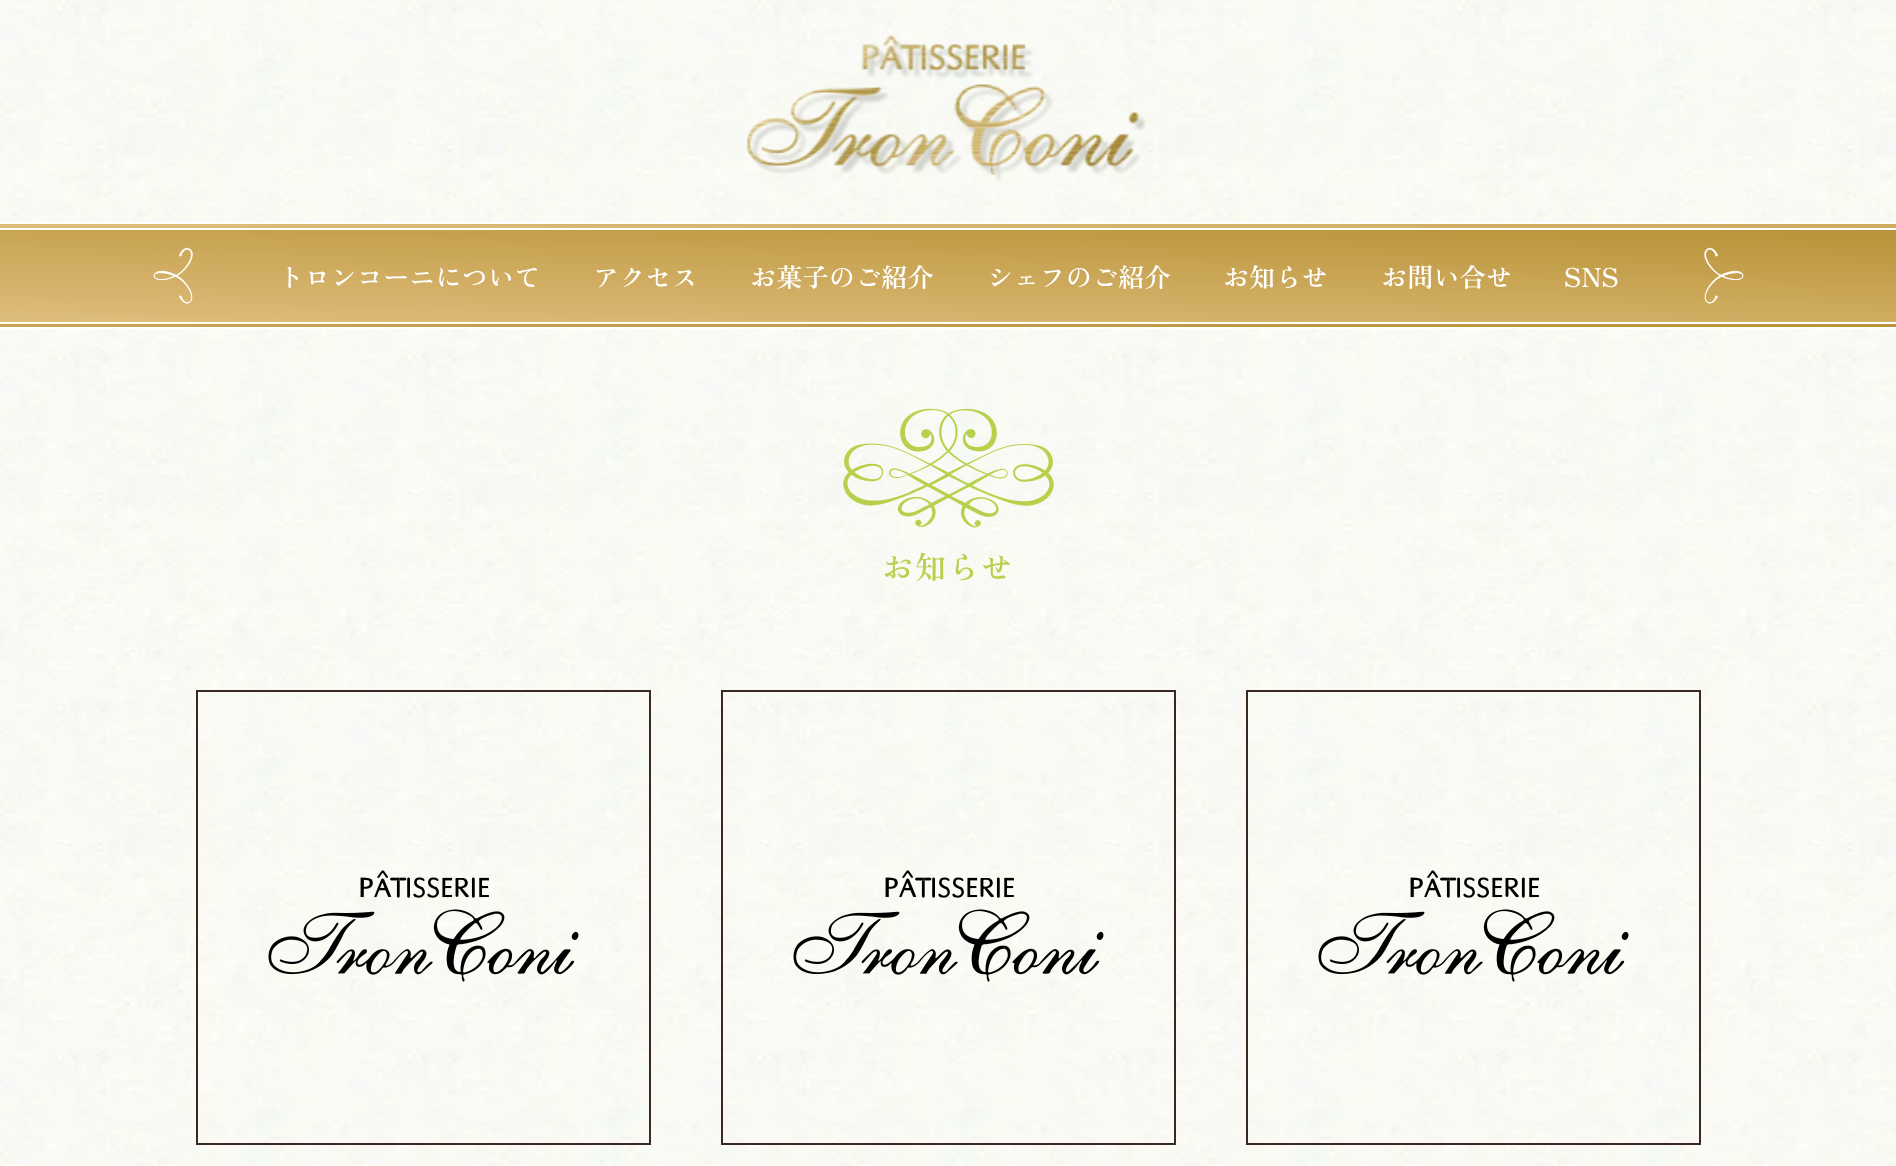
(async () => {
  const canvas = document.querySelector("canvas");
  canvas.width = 1896;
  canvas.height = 1166;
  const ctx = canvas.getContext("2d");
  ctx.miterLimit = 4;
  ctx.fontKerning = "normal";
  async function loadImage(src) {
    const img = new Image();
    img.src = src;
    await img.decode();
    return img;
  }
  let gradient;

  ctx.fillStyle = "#ffffff";
  ctx.fillRect(0, 0, 1896, 1166);
  ctx.drawImage(await loadImage("img/1.png"), 0, 0, 1896, 1166);
  ctx.drawImage(await loadImage("img/2.png"), 747, 35, 399, 147);
  gradient = ctx.createLinearGradient(946, 262, 951, 103);
  gradient.addColorStop(0, "#e0be7d");
  gradient.addColorStop(0.96, "#b9943a");
  ctx.fillStyle = gradient;
  ctx.fillRect(0, 224, 1896, 4);
  gradient = ctx.createLinearGradient(946, 355, 951, 196);
  gradient.addColorStop(0, "#e0be7d");
  gradient.addColorStop(0.96, "#b9943a");
  ctx.fillStyle = gradient;
  ctx.fillRect(0, 230, 1896, 92);
  gradient = ctx.createLinearGradient(946, 448, 951, 289);
  gradient.addColorStop(0, "#e0be7d");
  gradient.addColorStop(0.96, "#b9943a");
  ctx.fillStyle = gradient;
  ctx.fillRect(0, 324, 1896, 3);
  for (const [x, y, w, h, color] of [
    [0, 222, 1896, 2, "#ffffff"],
    [0, 228, 1896, 2, "#ffffff"],
    [0, 322, 1896, 2, "#ffffff"],
    [0, 327, 1896, 2, "#ffffff"],
  ]) {
    ctx.fillStyle = color;
    ctx.fillRect(x, y, w, h);
  }
  ctx.drawImage(await loadImage("img/3.png"), 153, 247, 40, 57);
  ctx.drawImage(await loadImage("img/4.png"), 1704, 247, 40, 57);
  ctx.drawImage(await loadImage("img/5.png"), 843, 408, 211, 120);
  ctx.strokeStyle = "#3a2921";
  ctx.lineWidth = 2;
  ctx.strokeRect(197, 691, 453, 453);
  ctx.drawImage(await loadImage("img/6.png"), 268, 870, 311, 112);
  ctx.strokeRect(722, 691, 453, 453);
  ctx.drawImage(await loadImage("img/7.png"), 793, 870, 311, 112);
  ctx.strokeRect(1247, 691, 453, 453);
  ctx.drawImage(await loadImage("img/8.png"), 1318, 870, 311, 112);
  ctx.font = "600 26.25px Zen Old Mincho";
  for (const [text, x, y] of [
    ["トロンコーニについて", 278, 287],
    ["アクセス", 593, 287],
    ["お菓子のご紹介", 750, 287],
    ["シェフのご紹介", 987, 287],
    ["お知らせ", 1223, 287],
    ["お問い合せ", 1381, 287],
    ["SNS", 1564, 287],
  ]) {
    ctx.fillText(text, x, y);
  }
  ctx.letterSpacing = "1.5px";
  ctx.font = "600 31.5px Zen Old Mincho";
  ctx.fillStyle = "#b7d14c";
  ctx.fillText("お知らせ", 882, 579);
})();
